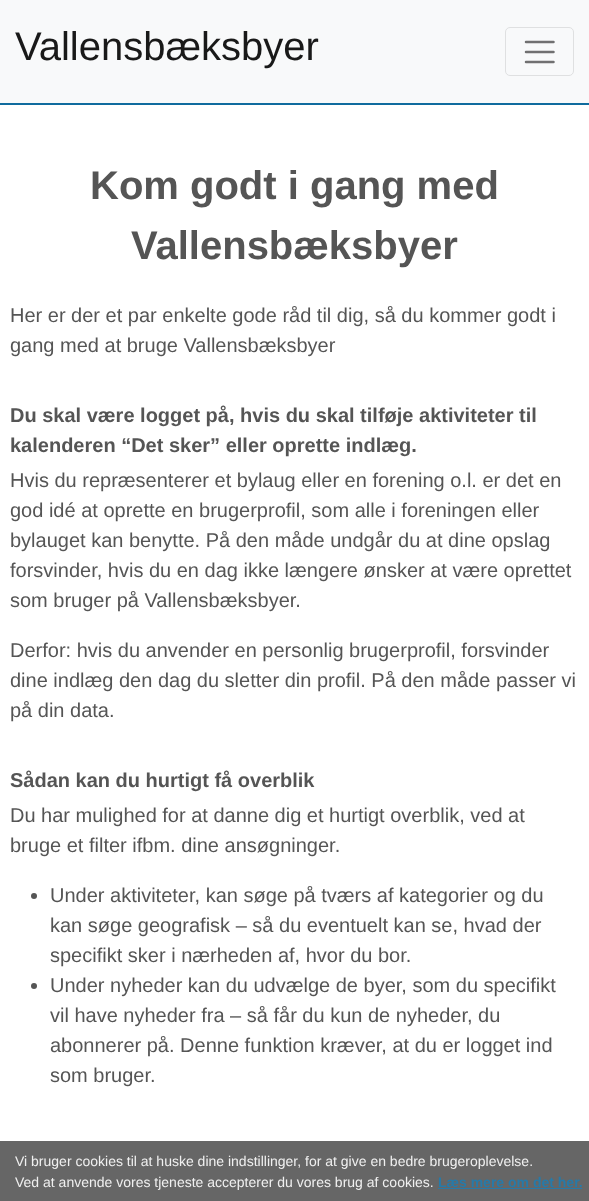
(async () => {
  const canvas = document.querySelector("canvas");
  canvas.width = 589;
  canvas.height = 1201;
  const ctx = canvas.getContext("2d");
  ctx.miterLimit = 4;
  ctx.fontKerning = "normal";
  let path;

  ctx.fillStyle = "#ffffff";
  ctx.fillRect(0, 0, 589, 1201);
  ctx.fillStyle = "#f8f9fa";
  ctx.fillRect(0, 0, 589, 103);
  ctx.fillStyle = "#0f6b9e";
  ctx.fillRect(0, 103, 589, 2);
  ctx.beginPath();
  ctx.roundRect(505.5, 27.5, 68, 48, 4.5);
  ctx.strokeStyle = "#dfe0e1";
  ctx.stroke();
  path = new Path2D("M526 42H553.5M526 52H553.5M526 62H553.5");
  ctx.strokeStyle = "#707071";
  ctx.lineWidth = 2.5;
  ctx.lineCap = "round";
  ctx.stroke(path);
  ctx.fillStyle = "#555555";
  ctx.beginPath();
  ctx.arc(34, 896, 3, 0, Math.PI * 2);
  ctx.fill();
  ctx.beginPath();
  ctx.arc(34, 986, 3, 0, Math.PI * 2);
  ctx.fill();
  ctx.fillStyle = "rgba(85, 85, 85, 0.9)";
  ctx.fillRect(0, 1141, 589, 60);
  ctx.fillStyle = "#277aa8";
  ctx.fillRect(438, 1188, 144, 1);
  ctx.font = "40px Liberation Sans";
  ctx.fillStyle = "#191919";
  ctx.fillText("Vallensbæksbyer", 15, 60);
  ctx.font = "bold 40px Liberation Sans";
  ctx.fillStyle = "#555555";
  ctx.fillText("Kom godt i gang med", 90, 199);
  ctx.fillText("Vallensbæksbyer", 131, 259);
  ctx.font = "20px Liberation Sans";
  ctx.fillText("Her er der et par enkelte gode råd til dig, så du kommer godt i", 10, 322);
  ctx.fillText("gang med at bruge Vallensbæksbyer", 10, 352);
  ctx.font = "bold 20px Liberation Sans";
  ctx.fillText("Du skal være logget på, hvis du skal tilføje aktiviteter til", 10, 422);
  ctx.fillText("kalenderen “Det sker” eller oprette indlæg.", 10, 452);
  ctx.font = "20px Liberation Sans";
  for (const [text, x, y] of [
    ["Hvis du repræsenterer et bylaug eller en forening o.l. er det en", 10, 487],
    ["god idé at oprette en brugerprofil, som alle i foreningen eller", 10, 517],
    ["bylauget kan benytte. På den måde undgår du at dine opslag", 10, 547],
    ["forsvinder, hvis du en dag ikke længere ønsker at være oprettet", 10, 577],
    ["som bruger på Vallensbæksbyer.", 10, 607],
    ["Derfor: hvis du anvender en personlig brugerprofil, forsvinder", 10, 657],
    ["dine indlæg den dag du sletter din profil. På den måde passer vi", 10, 687],
    ["på din data.", 10, 717],
  ]) {
    ctx.fillText(text, x, y);
  }
  ctx.font = "bold 20px Liberation Sans";
  ctx.fillText("Sådan kan du hurtigt få overblik", 10, 787);
  ctx.font = "20px Liberation Sans";
  for (const [text, x, y] of [
    ["Du har mulighed for at danne dig et hurtigt overblik, ved at", 10, 822],
    ["bruge et filter ifbm. dine ansøgninger.", 10, 852],
    ["Under aktiviteter, kan søge på tværs af kategorier og du", 50, 902],
    ["kan søge geografisk – så du eventuelt kan se, hvad der", 50, 932],
    ["specifikt sker i nærheden af, hvor du bor.", 50, 962],
    ["Under nyheder kan du udvælge de byer, som du specifikt", 50, 992],
    ["vil have nyheder fra – så får du kun de nyheder, du", 50, 1022],
    ["abonnerer på. Denne funktion kræver, at du er logget ind", 50, 1052],
    ["som bruger.", 50, 1082],
  ]) {
    ctx.fillText(text, x, y);
  }
  ctx.font = "14px Liberation Sans";
  ctx.fillStyle = "#f0f0f0";
  ctx.fillText("Vi bruger cookies til at huske dine indstillinger, for at give en bedre brugeroplevelse.", 15, 1166);
  ctx.fillText("Ved at anvende vores tjeneste accepterer du vores brug af cookies.", 15, 1187);
  ctx.font = "bold 14px Liberation Sans";
  ctx.fillStyle = "#277aa8";
  ctx.fillText("Læs mere om det her.", 438, 1187);
})();
